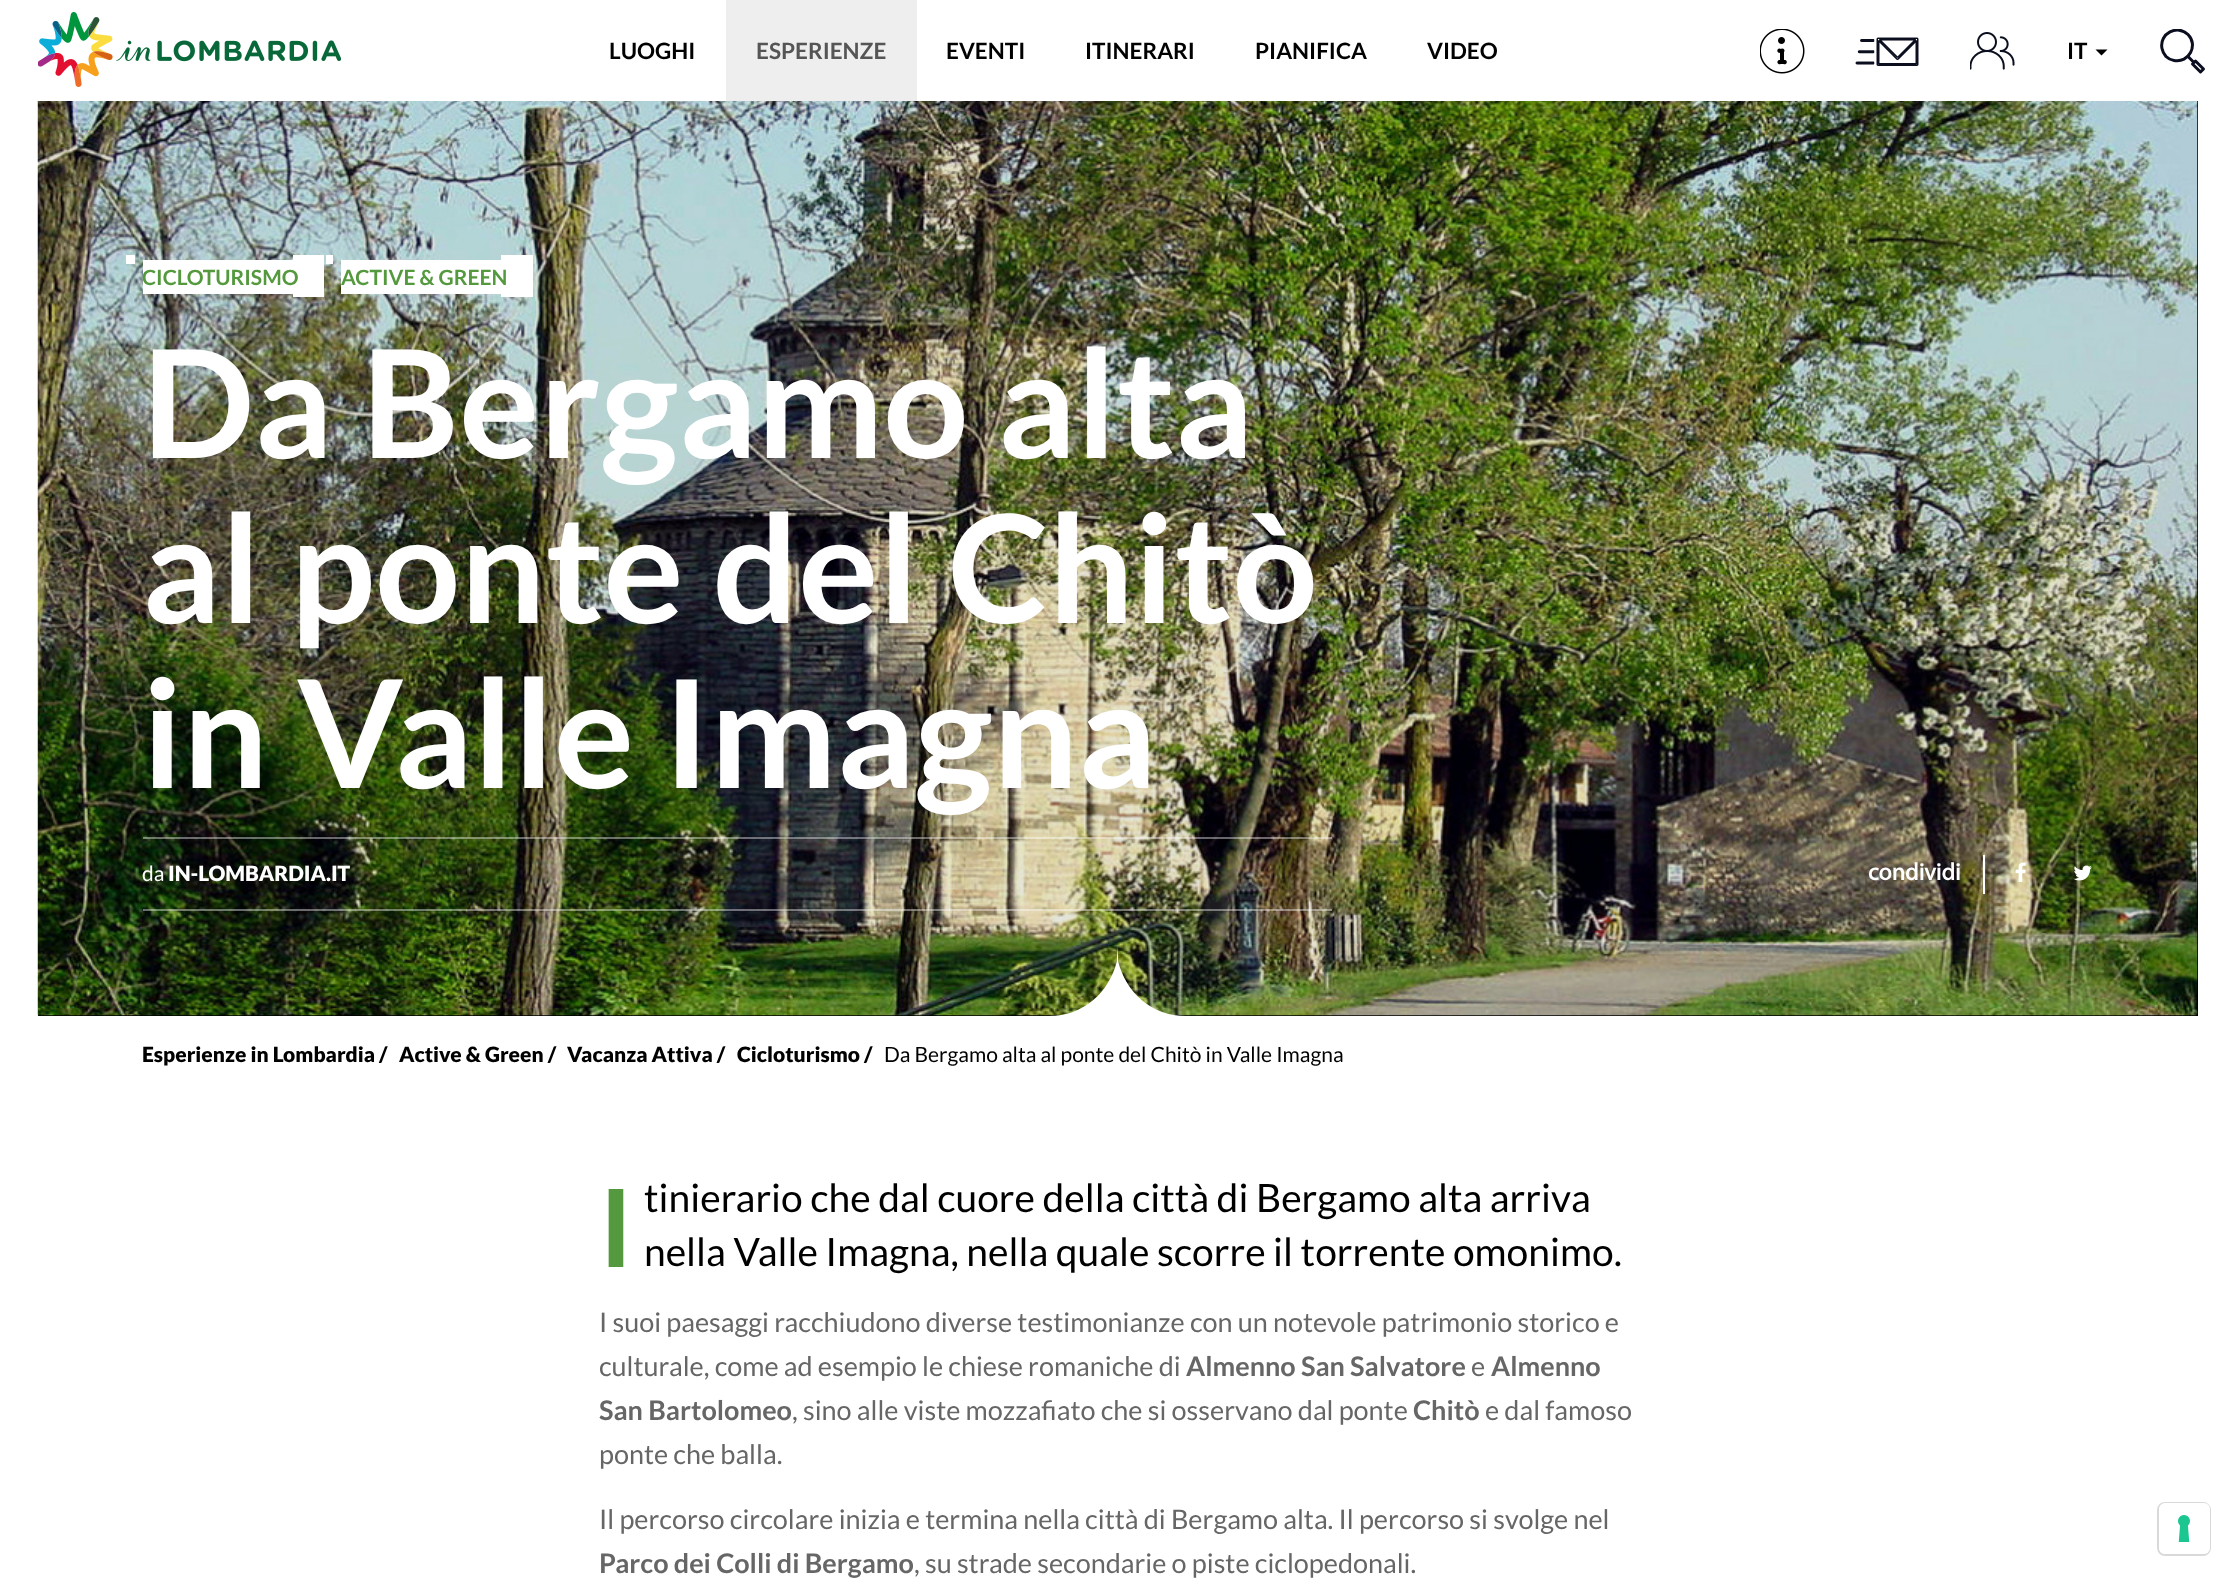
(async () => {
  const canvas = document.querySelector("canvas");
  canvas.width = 2233;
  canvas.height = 1578;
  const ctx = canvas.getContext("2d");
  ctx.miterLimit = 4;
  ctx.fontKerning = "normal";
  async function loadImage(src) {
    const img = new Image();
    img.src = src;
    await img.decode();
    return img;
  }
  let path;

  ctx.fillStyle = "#ffffff";
  ctx.fillRect(0, 0, 2233, 1578);
  ctx.drawImage(await loadImage("img/1.png"), 38, 12, 303, 75);
  ctx.fillStyle = "#eeeeee";
  ctx.fillRect(726, 0, 191, 101);
  ctx.drawImage(await loadImage("img/2.png"), 1760, 29, 45, 45);
  ctx.drawImage(await loadImage("img/3.png"), 1855, 37, 64, 29);
  ctx.drawImage(await loadImage("img/4.png"), 1970, 32, 45, 38);
  ctx.fillStyle = "#000000";
  path = new Path2D("M2095.5 49.5H2107.5L2101.5 55.5Z");
  ctx.fill(path);
  ctx.save();
  ctx.beginPath();
  ctx.rect(2160, 29, 45, 45);
  ctx.clip();
  path = new Path2D("M2188 34.5C2198.5 45 2189 63.5 2174 60.5C2171 60 2168 58.5 2166 56.5C2164 54 2162.5 51.5 2162 48.5C2159 33.5 2177.5 24 2188 34.5Z");
  ctx.strokeStyle = "#0b0e1e";
  ctx.lineWidth = 3;
  ctx.lineCap = "round";
  ctx.lineJoin = "round";
  ctx.stroke(path);
  ctx.restore();
  path = new Path2D("M2188 56.5L2194 62.5M2203.5 69L2200.5 72L2192.5 64L2195.5 61Z");
  ctx.strokeStyle = "#0b0e1e";
  ctx.lineWidth = 3;
  ctx.lineCap = "round";
  ctx.lineJoin = "round";
  ctx.stroke(path);
  ctx.fillRect(38, 101, 2160, 915);
  ctx.drawImage(await loadImage("img/5.png"), 37, 101, 2161, 915);
  for (const [x, y, w, h, color] of [
    [126, 255, 9, 9, "#ffffff"],
    [143, 260, 150, 34, "#ffffff"],
    [293, 255, 31, 42, "#ffffff"],
  ]) {
    ctx.fillStyle = color;
    ctx.fillRect(x, y, w, h);
  }
  path = new Path2D("M292.5 259.5H316.5L306 292.5Z");
  ctx.fill(path);
  for (const [x, y, w, h, color] of [
    [326, 255, 7, 9, "#ffffff"],
    [341, 260, 160, 34, "#ffffff"],
    [501, 255, 32, 42, "#ffffff"],
    [143, 837, 1189, 2, "rgba(255, 255, 255, 0.4)"],
    [143, 909, 1189, 2, "rgba(255, 255, 255, 0.4)"],
    [1983, 855, 2, 39, "#ffffff"],
  ]) {
    ctx.fillStyle = color;
    ctx.fillRect(x, y, w, h);
  }
  ctx.drawImage(await loadImage("img/6.png"), 2015, 862, 11, 20);
  ctx.drawImage(await loadImage("img/7.png"), 2073, 865, 19, 16);
  path = new Path2D("M1118 1016H1049C1083 1016 1109 993 1117 961V947L1118 957V947V961C1126 993 1152 1016 1186 1016Z");
  ctx.fill(path, "evenodd");
  ctx.beginPath();
  ctx.roundRect(2158, 1503, 52, 52, 7);
  ctx.strokeStyle = "#d9d9d9";
  ctx.lineWidth = 2;
  ctx.lineJoin = "miter";
  ctx.stroke();
  ctx.beginPath();
  ctx.roundRect(2159, 1503, 51, 51, 6);
  ctx.fill();
  ctx.drawImage(await loadImage("img/8.png"), 2178, 1515, 12, 27);
  ctx.font = "bold 22.5px Lato";
  ctx.fillStyle = "#000000";
  ctx.fillText("LUOGHI", 609, 59);
  ctx.fillStyle = "#555555";
  ctx.fillText("ESPERIENZE", 756, 59);
  ctx.fillStyle = "#000000";
  for (const [text, x, y] of [
    ["EVENTI", 946, 59],
    ["ITINERARI", 1085, 59],
    ["PIANIFICA", 1255, 59],
    ["VIDEO", 1427, 59],
    ["IT", 2067, 59],
  ]) {
    ctx.fillText(text, x, y);
  }
  ctx.font = "bold 21px Lato";
  ctx.fillStyle = "#54993d";
  ctx.fillText("CICLOTURISMO", 142, 285);
  ctx.fillText("ACTIVE & GREEN", 341, 285);
  ctx.font = "bold 150px Lato";
  ctx.fillStyle = "#ffffff";
  for (const [text, x, y] of [
    ["Da Bergamo alta", 142, 458],
    ["al ponte del Chitò", 142, 623],
    ["in Valle Imagna", 142, 788],
  ]) {
    ctx.fillText(text, x, y);
  }
  ctx.font = "21px Lato";
  ctx.fillText("da", 142, 881);
  ctx.font = "900 21px Lato";
  ctx.fillText("IN-LOMBARDIA.IT", 168, 881);
  ctx.font = "bold 24px Myriad";
  ctx.fillText("condividi", 1868, 880);
  ctx.font = "900 21px Lato";
  ctx.fillStyle = "#000000";
  for (const [text, x, y] of [
    ["Esperienze in Lombardia /", 142, 1062],
    ["Active & Green /", 399, 1062],
    ["Vacanza Attiva /", 567, 1062],
    ["Cicloturismo /", 737, 1062],
  ]) {
    ctx.fillText(text, x, y);
  }
  ctx.font = "21px Lato";
  ctx.fillText("Da Bergamo alta al ponte del Chitò in Valle Imagna", 884, 1062);
  ctx.font = "bold 108px Lato";
  ctx.fillStyle = "#54993d";
  ctx.fillText("I", 599, 1267);
  ctx.font = "39px Lato";
  ctx.fillStyle = "#000000";
  ctx.fillText("tinierario che dal cuore della città di Bergamo alta arriva", 644, 1212);
  ctx.fillText("nella Valle Imagna, nella quale scorre il torrente omonimo.", 644, 1266);
  ctx.font = "27px Lato";
  ctx.fillStyle = "#666666";
  ctx.fillText("I suoi paesaggi racchiudono diverse testimonianze con un notevole patrimonio storico e", 599, 1332);
  ctx.fillText("culturale, come ad esempio le chiese romaniche di", 599, 1376);
  ctx.font = "bold 27px Lato";
  ctx.fillText("Almenno San Salvatore", 1186, 1376);
  ctx.font = "27px Lato";
  ctx.fillText("e", 1471, 1376);
  ctx.font = "bold 27px Lato";
  ctx.fillText("Almenno", 1491, 1376);
  ctx.fillText("San Bartolomeo", 599, 1420);
  ctx.font = "27px Lato";
  ctx.fillText(", sino alle viste mozzafiato che si osservano dal ponte", 792, 1420);
  ctx.font = "bold 27px Lato";
  ctx.fillText("Chitò", 1413, 1420);
  ctx.font = "27px Lato";
  for (const [text, x, y] of [
    ["e dal famoso", 1485, 1420],
    ["ponte che balla.", 599, 1464],
    ["Il percorso circolare inizia e termina nella città di Bergamo alta. Il percorso si svolge nel", 599, 1529],
  ]) {
    ctx.fillText(text, x, y);
  }
  ctx.font = "bold 27px Lato";
  ctx.fillText("Parco dei Colli di Bergamo", 599, 1573);
  ctx.font = "27px Lato";
  ctx.fillText(", su strade secondarie o piste ciclopedonali.", 914, 1573);
})();
